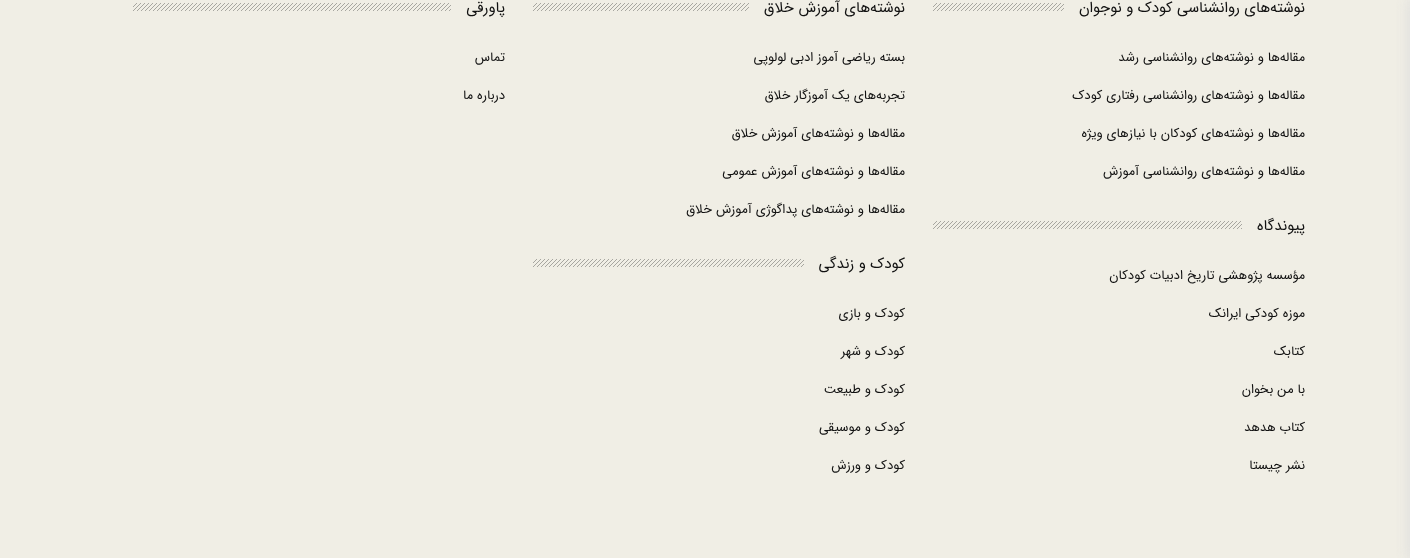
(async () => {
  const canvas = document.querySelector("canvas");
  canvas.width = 1410;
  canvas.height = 558;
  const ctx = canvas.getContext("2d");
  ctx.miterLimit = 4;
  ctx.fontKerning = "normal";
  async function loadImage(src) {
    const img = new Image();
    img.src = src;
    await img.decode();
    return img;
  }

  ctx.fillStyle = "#f0eee5";
  ctx.fillRect(0, 0, 1410, 558);
  ctx.fillStyle = "#dddddd";
  ctx.filter = "blur(7px)";
  ctx.beginPath();
  ctx.rect(1409, -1, 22, 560);
  ctx.fill();
  ctx.filter = "none";
  ctx.drawImage(await loadImage("img/1.png"), 933, 3, 131, 8);
  ctx.drawImage(await loadImage("img/2.png"), 933, 221, 309, 8);
  ctx.drawImage(await loadImage("img/3.png"), 533, 3, 216, 8);
  ctx.drawImage(await loadImage("img/4.png"), 533, 259, 271, 8);
  ctx.drawImage(await loadImage("img/5.png"), 133, 3, 318, 8);
  ctx.direction = "rtl";
  ctx.font = "15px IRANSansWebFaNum";
  ctx.fillStyle = "#111111";
  ctx.fillText("نوشته‌های روانشناسی کودک و نوجوان", 1305, 12);
  ctx.font = "13px IRANSansWebFaNum";
  for (const [text, x, y] of [
    ["مقاله‌ها و نوشته‌های روانشناسی رشد", 1305, 61],
    ["مقاله‌ها و نوشته‌های روانشناسی رفتاری کودک", 1305, 99],
    ["مقاله‌ها و نوشته‌های کودکان با نیازهای ویژه", 1305, 137],
    ["مقاله‌ها و نوشته‌های روانشناسی آموزش", 1305, 175],
  ]) {
    ctx.fillText(text, x, y);
  }
  ctx.font = "15px IRANSansWebFaNum";
  ctx.fillText("پیوندگاه", 1305, 230);
  ctx.font = "13px IRANSansWebFaNum";
  for (const [text, x, y] of [
    ["مؤسسه پژوهشی تاریخ ادبیات کودکان", 1305, 279],
    ["موزه کودکی ایرانک", 1305, 317],
    ["کتابک", 1305, 355],
    ["با من بخوان", 1305, 393],
    ["کتاب هدهد", 1305, 431],
    ["نشر چیستا", 1305, 469],
  ]) {
    ctx.fillText(text, x, y);
  }
  ctx.font = "15px IRANSansWebFaNum";
  ctx.fillText("نوشته‌های آموزش خلاق", 905, 12);
  ctx.font = "13px IRANSansWebFaNum";
  for (const [text, x, y] of [
    ["بسته ریاضی آموز ادبی لولوپی", 905, 61],
    ["تجربه‌های یک آموزگار خلاق", 905, 99],
    ["مقاله‌ها و نوشته‌های آموزش خلاق", 905, 137],
    ["مقاله‌ها و نوشته‌های آموزش عمومی", 905, 175],
    ["مقاله‌ها و نوشته‌های پداگوژی آموزش خلاق", 905, 213],
  ]) {
    ctx.fillText(text, x, y);
  }
  ctx.font = "15px IRANSansWebFaNum";
  ctx.fillText("کودک و زندگی", 905, 268);
  ctx.font = "13px IRANSansWebFaNum";
  for (const [text, x, y] of [
    ["کودک و بازی", 905, 317],
    ["کودک و شهر", 905, 355],
    ["کودک و طبیعت", 905, 393],
    ["کودک و موسیقی", 905, 431],
    ["کودک و ورزش", 905, 469],
  ]) {
    ctx.fillText(text, x, y);
  }
  ctx.font = "15px IRANSansWebFaNum";
  ctx.fillText("پاورقی", 505, 12);
  ctx.font = "13px IRANSansWebFaNum";
  ctx.fillText("تماس", 505, 61);
  ctx.fillText("درباره ما", 505, 99);
})();
